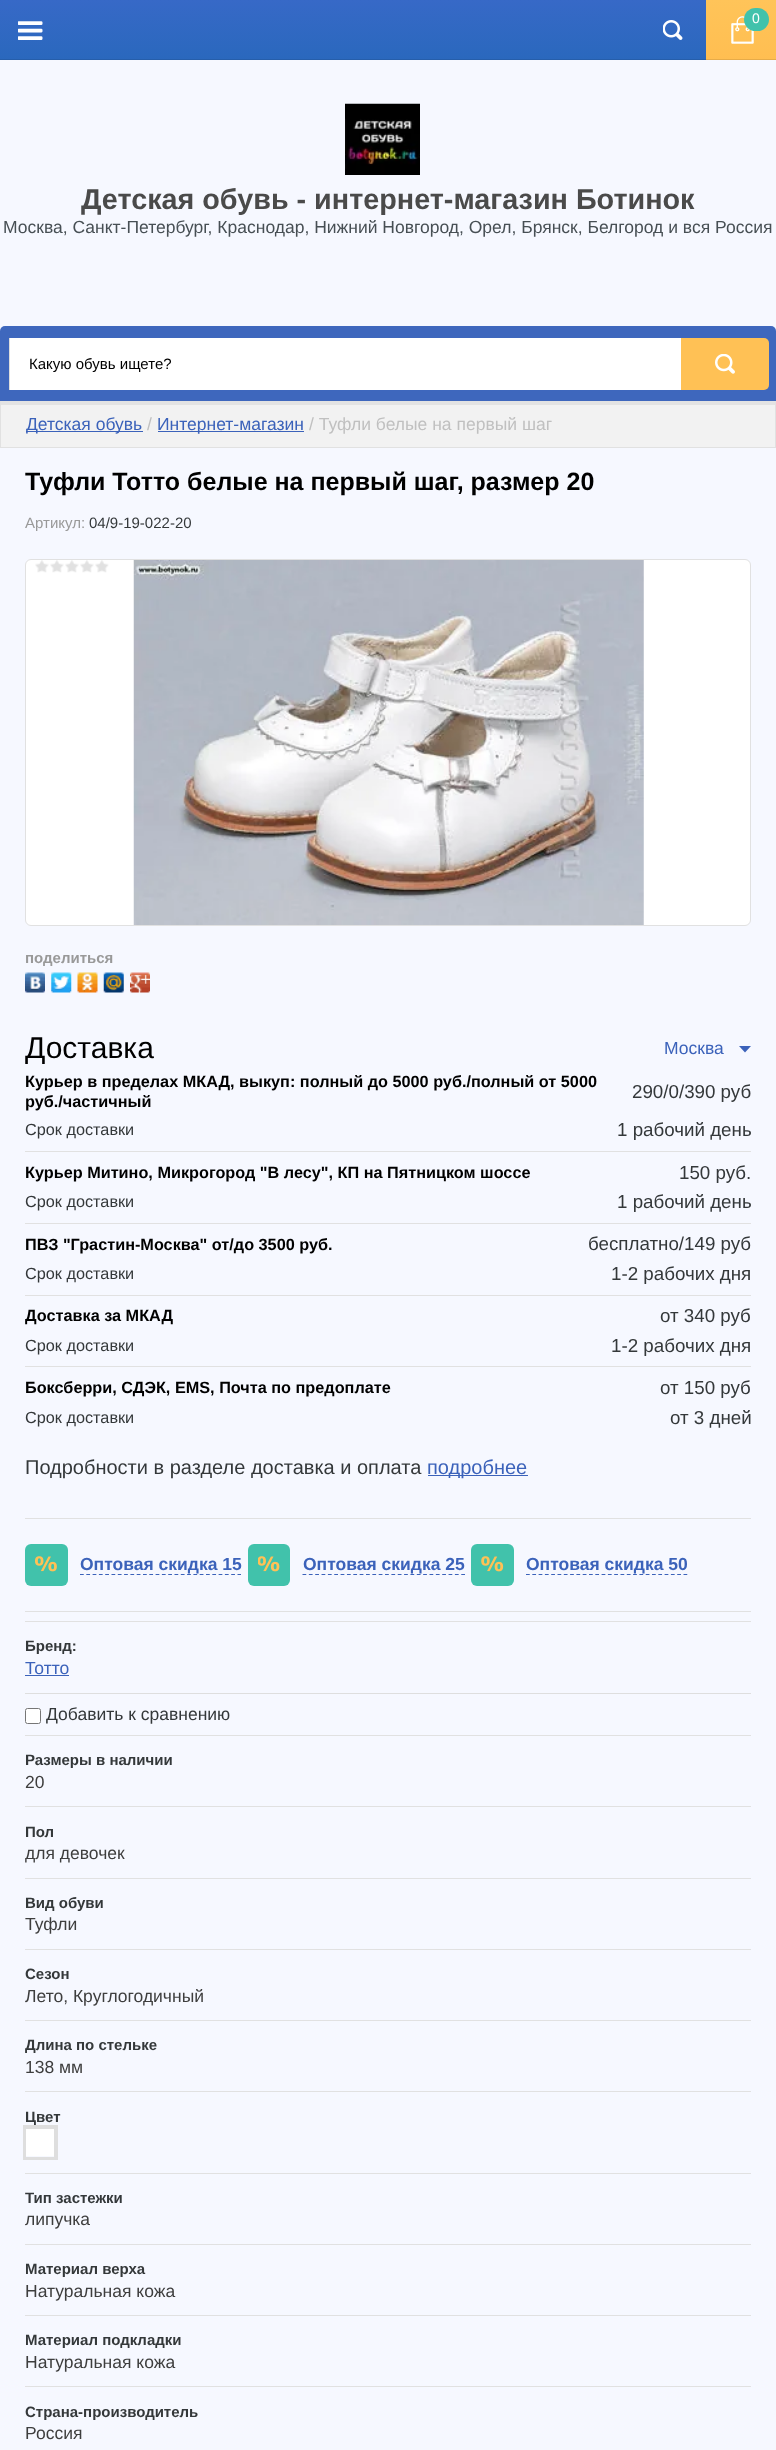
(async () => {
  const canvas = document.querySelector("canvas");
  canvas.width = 776;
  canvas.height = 2450;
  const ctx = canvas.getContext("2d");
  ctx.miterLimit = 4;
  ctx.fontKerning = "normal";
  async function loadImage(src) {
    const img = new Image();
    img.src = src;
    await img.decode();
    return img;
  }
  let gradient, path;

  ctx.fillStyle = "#f6f8ff";
  ctx.fillRect(0, 0, 776, 2450);
  gradient = ctx.createLinearGradient(388, 60, 388, 0);
  gradient.addColorStop(0, "#2a68bd");
  gradient.addColorStop(1, "#3769c7");
  ctx.fillStyle = gradient;
  ctx.fillRect(0, 0, 706, 59);
  ctx.fillStyle = "#265eaa";
  ctx.fillRect(0, 59, 706, 1);
  gradient = ctx.createLinearGradient(741, 60, 741, 0);
  gradient.addColorStop(0, "#ffbe51");
  gradient.addColorStop(1, "#ffc459");
  ctx.fillStyle = gradient;
  ctx.fillRect(706, 0, 70, 59);
  ctx.fillStyle = "#e6ab49";
  ctx.fillRect(706, 59, 70, 1);
  ctx.drawImage(await loadImage("img/1.png"), 731, 16, 23, 28);
  ctx.fillStyle = "#41c2ab";
  ctx.beginPath();
  ctx.roundRect(744, 8, 25, 23, 11.5);
  ctx.fill();
  ctx.drawImage(await loadImage("img/2.png"), 663, 20, 20, 20);
  ctx.drawImage(await loadImage("img/3.png"), 18, 21, 25, 19);
  ctx.drawImage(await loadImage("img/4.png"), 345, 103, 75, 72);
  ctx.fillStyle = "#f2f2f2";
  ctx.fillRect(1, 405, 774, 42);
  ctx.fillStyle = "#e3e3e3";
  ctx.fillRect(1, 401, 774, 4);
  ctx.strokeStyle = "#e1e1e1";
  ctx.strokeRect(0.5, 400.5, 775, 47);
  ctx.fillStyle = "#3e67bd";
  ctx.beginPath();
  ctx.roundRect(0, 326, 776, 75, [5, 5, 0, 0]);
  ctx.fill();
  ctx.fillStyle = "#dddddd";
  ctx.fillRect(9, 338, 1, 52);
  ctx.fillStyle = "#ffffff";
  ctx.fillRect(10, 338, 671, 52);
  ctx.fillStyle = "#ffc155";
  ctx.beginPath();
  ctx.roundRect(681, 338, 88, 52, [0, 5, 5, 0]);
  ctx.fill();
  ctx.drawImage(await loadImage("img/5.png"), 715, 354, 20, 20);
  for (const [x, y, w, h, color] of [
    [26, 431, 117, 1, "#3b62ba"],
    [158, 431, 146, 1, "#3b62ba"],
    [25, 1518, 726, 1, "#e1e1e1"],
  ]) {
    ctx.fillStyle = color;
    ctx.fillRect(x, y, w, h);
  }
  ctx.fillStyle = "#ffffff";
  ctx.beginPath();
  ctx.roundRect(25.5, 559.5, 725, 366, 5.5);
  ctx.fill();
  ctx.stroke();
  ctx.drawImage(await loadImage("img/6.png"), 35, 560, 74, 13);
  ctx.drawImage(await loadImage("img/7.png"), 133, 560, 511, 365);
  ctx.drawImage(await loadImage("img/8.png"), 25, 972, 20, 21);
  ctx.drawImage(await loadImage("img/9.png"), 51, 972, 21, 21);
  ctx.drawImage(await loadImage("img/10.png"), 77, 972, 21, 21);
  ctx.drawImage(await loadImage("img/11.png"), 103, 972, 21, 21);
  ctx.drawImage(await loadImage("img/12.png"), 130, 972, 20, 21);
  ctx.fillStyle = "#3b62ba";
  path = new Path2D("M739 1046H751L745 1052.5Z");
  ctx.fill(path);
  for (const [x, y, w, h, color] of [
    [25, 1151, 726, 1, "#e1e1e1"],
    [25, 1223, 726, 1, "#e1e1e1"],
    [25, 1295, 726, 1, "#e1e1e1"],
    [25, 1366, 726, 1, "#e1e1e1"],
    [428, 1475, 100, 1, "#3b62ba"],
    [25, 1611, 726, 1, "#e1e1e1"],
  ]) {
    ctx.fillStyle = color;
    ctx.fillRect(x, y, w, h);
  }
  ctx.fillStyle = "#41c2ab";
  ctx.beginPath();
  ctx.roundRect(25, 1544, 43, 42, 6);
  ctx.fill();
  ctx.drawImage(await loadImage("img/13.png"), 35, 1556, 22, 16);
  path = new Path2D("M80 1574.5H241");
  ctx.strokeStyle = "#3b62ba";
  ctx.lineWidth = 1.2;
  ctx.setLineDash([3.75, 2.55]);
  ctx.stroke(path);
  ctx.beginPath();
  ctx.roundRect(248, 1544, 42, 42, 6);
  ctx.fill();
  ctx.drawImage(await loadImage("img/14.png"), 258, 1556, 22, 16);
  path = new Path2D("M302.5 1574.5H465");
  ctx.setLineDash([3.75, 2.6]);
  ctx.stroke(path);
  ctx.beginPath();
  ctx.roundRect(471, 1544, 43, 42, 6);
  ctx.fill();
  ctx.drawImage(await loadImage("img/15.png"), 481, 1556, 23, 16);
  path = new Path2D("M526 1574.5H687.5");
  ctx.setLineDash([3.75, 2.55]);
  ctx.stroke(path);
  for (const [x, y, w, h, color] of [
    [25, 1621, 726, 1, "#e1e1e1"],
    [25, 1675, 44, 1, "#3b62ba"],
    [25, 1693, 726, 1, "#dedede"],
  ]) {
    ctx.fillStyle = color;
    ctx.fillRect(x, y, w, h);
  }
  ctx.fillStyle = "#ffffff";
  ctx.beginPath();
  ctx.roundRect(25.5, 1708.5, 15, 15, 2);
  ctx.fill();
  ctx.strokeStyle = "#767676";
  ctx.lineWidth = 1;
  ctx.setLineDash([]);
  ctx.stroke();
  for (const [x, y, w, h, color] of [
    [25, 1735, 726, 1, "#e1e1e1"],
    [25, 1806, 726, 1, "#e1e1e1"],
    [25, 1878, 726, 1, "#e1e1e1"],
    [25, 1949, 726, 1, "#e1e1e1"],
    [25, 2020, 726, 1, "#e1e1e1"],
    [25, 2091, 726, 1, "#e1e1e1"],
  ]) {
    ctx.fillStyle = color;
    ctx.fillRect(x, y, w, h);
  }
  ctx.strokeStyle = "#dedede";
  ctx.strokeRect(25.5, 2128.5, 29, 29);
  ctx.lineWidth = 3;
  ctx.strokeRect(24.5, 2126.5, 32, 32);
  for (const [x, y, w, h, color] of [
    [26, 2129, 28, 27, "#ffffff"],
    [25, 2173, 726, 1, "#e1e1e1"],
    [25, 2244, 726, 1, "#e1e1e1"],
    [25, 2315, 726, 1, "#e1e1e1"],
    [25, 2386, 726, 1, "#e1e1e1"],
  ]) {
    ctx.fillStyle = color;
    ctx.fillRect(x, y, w, h);
  }
  ctx.font = "14px Liberation Sans";
  ctx.fillStyle = "#ffffff";
  ctx.fillText("0", 752, 23);
  ctx.font = "bold 28.75px Liberation Sans";
  ctx.fillStyle = "#4a4a4a";
  ctx.fillText("Детская обувь - интернет-магазин Ботинок", 81, 209);
  ctx.font = "17.5px Liberation Sans";
  ctx.fillStyle = "#474f54";
  ctx.fillText("Москва, Санкт-Петербург, Краснодар, Нижний Новгород, Орел, Брянск, Белгород и вся Россия", 3, 233);
  ctx.font = "15px Liberation Sans";
  ctx.fillStyle = "#000000";
  ctx.fillText("Какую обувь ищете?", 29, 369);
  ctx.font = "17.5px Liberation Sans";
  ctx.fillStyle = "#3b62ba";
  ctx.fillText("Детская обувь", 26, 430);
  ctx.fillStyle = "#c0c0c0";
  ctx.fillText("/", 147, 430);
  ctx.fillStyle = "#3b62ba";
  ctx.fillText("Интернет-магазин", 157, 430);
  ctx.fillStyle = "#c0c0c0";
  ctx.fillText("/ Туфли белые на первый шаг", 309, 430);
  ctx.font = "bold 25px Liberation Sans";
  ctx.fillStyle = "#000000";
  ctx.fillText("Туфли Тотто белые на первый шаг, размер 20", 25, 490);
  ctx.font = "15px Liberation Sans";
  ctx.fillStyle = "#999999";
  ctx.fillText("Артикул:", 25, 528);
  ctx.fillStyle = "#34383a";
  ctx.fillText("04/9-19-022-20", 89, 528);
  ctx.font = "bold 15px Liberation Sans";
  ctx.fillStyle = "#999999";
  ctx.fillText("поделиться", 25, 963);
  ctx.font = "30px Liberation Sans";
  ctx.fillStyle = "#000000";
  ctx.fillText("Доставка", 25, 1058);
  ctx.font = "17.5px Liberation Sans";
  ctx.fillStyle = "#3b62ba";
  ctx.fillText("Москва", 664, 1054);
  ctx.font = "bold 16.25px Liberation Sans";
  ctx.fillStyle = "#000000";
  ctx.fillText("Курьер в пределах МКАД, выкуп: полный до 5000 руб./полный от 5000", 25, 1087);
  ctx.fillText("руб./частичный", 25, 1107);
  ctx.font = "18.75px Liberation Sans";
  ctx.fillStyle = "#34383a";
  ctx.fillText("290/0/390 руб", 632, 1098);
  ctx.font = "16.25px Liberation Sans";
  ctx.fillText("Срок доставки", 25, 1135);
  ctx.font = "18.75px Liberation Sans";
  ctx.fillText("1 рабочий день", 617, 1136);
  ctx.font = "bold 16.25px Liberation Sans";
  ctx.fillStyle = "#000000";
  ctx.fillText("Курьер Митино, Микрогород \"В лесу\", КП на Пятницком шоссе", 25, 1178);
  ctx.font = "18.75px Liberation Sans";
  ctx.fillStyle = "#34383a";
  ctx.fillText("150 руб.", 679, 1179);
  ctx.font = "16.25px Liberation Sans";
  ctx.fillText("Срок доставки", 25, 1207);
  ctx.font = "18.75px Liberation Sans";
  ctx.fillText("1 рабочий день", 617, 1208);
  ctx.font = "bold 16.25px Liberation Sans";
  ctx.fillStyle = "#000000";
  ctx.fillText("ПВЗ \"Грастин-Москва\" от/до 3500 руб.", 25, 1250);
  ctx.font = "18.75px Liberation Sans";
  ctx.fillStyle = "#34383a";
  ctx.fillText("бесплатно/149 руб", 588, 1250);
  ctx.font = "16.25px Liberation Sans";
  ctx.fillText("Срок доставки", 25, 1279);
  ctx.font = "18.75px Liberation Sans";
  ctx.fillText("1-2 рабочих дня", 611, 1280);
  ctx.font = "bold 16.25px Liberation Sans";
  ctx.fillStyle = "#000000";
  ctx.fillText("Доставка за МКАД", 25, 1321);
  ctx.font = "18.75px Liberation Sans";
  ctx.fillStyle = "#34383a";
  ctx.fillText("от 340 руб", 660, 1322);
  ctx.font = "16.25px Liberation Sans";
  ctx.fillText("Срок доставки", 25, 1351);
  ctx.font = "18.75px Liberation Sans";
  ctx.fillText("1-2 рабочих дня", 611, 1352);
  ctx.font = "bold 16.25px Liberation Sans";
  ctx.fillStyle = "#000000";
  ctx.fillText("Боксберри, СДЭК, EMS, Почта по предоплате", 25, 1393);
  ctx.font = "18.75px Liberation Sans";
  ctx.fillStyle = "#34383a";
  ctx.fillText("от 150 руб", 660, 1394);
  ctx.font = "16.25px Liberation Sans";
  ctx.fillText("Срок доставки", 25, 1423);
  ctx.font = "18.75px Liberation Sans";
  ctx.fillText("от 3 дней", 670, 1424);
  ctx.font = "20px Liberation Sans";
  ctx.fillText("Подробности в разделе доставка и оплата", 25, 1474);
  ctx.fillStyle = "#3b62ba";
  ctx.fillText("подробнее", 427, 1474);
  ctx.font = "bold 17.5px Liberation Sans";
  for (const [text, x, y] of [
    ["Оптовая скидка 15", 80, 1570],
    ["Оптовая скидка 25", 303, 1570],
    ["Оптовая скидка 50", 526, 1570],
  ]) {
    ctx.fillText(text, x, y);
  }
  ctx.font = "bold 15px Liberation Sans";
  ctx.fillStyle = "#34383a";
  ctx.fillText("Бренд:", 25, 1651);
  ctx.font = "17.5px Liberation Sans";
  ctx.fillStyle = "#3b62ba";
  ctx.fillText("Тотто", 25, 1674);
  ctx.fillStyle = "#34383a";
  ctx.fillText("Добавить к сравнению", 46, 1720);
  ctx.font = "bold 15px Liberation Sans";
  ctx.fillText("Размеры в наличии", 25, 1765);
  ctx.font = "17.5px Liberation Sans";
  ctx.fillStyle = "#3e3e3e";
  ctx.fillText("20", 25, 1788);
  ctx.font = "bold 15px Liberation Sans";
  ctx.fillStyle = "#34383a";
  ctx.fillText("Пол", 25, 1837);
  ctx.font = "17.5px Liberation Sans";
  ctx.fillStyle = "#3e3e3e";
  ctx.fillText("для девочек", 25, 1859);
  ctx.font = "bold 15px Liberation Sans";
  ctx.fillStyle = "#34383a";
  ctx.fillText("Вид обуви", 25, 1908);
  ctx.font = "17.5px Liberation Sans";
  ctx.fillStyle = "#3e3e3e";
  ctx.fillText("Туфли", 25, 1930);
  ctx.font = "bold 15px Liberation Sans";
  ctx.fillStyle = "#34383a";
  ctx.fillText("Сезон", 25, 1979);
  ctx.font = "17.5px Liberation Sans";
  ctx.fillStyle = "#3e3e3e";
  ctx.fillText("Лето, Круглогодичный", 25, 2002);
  ctx.font = "bold 15px Liberation Sans";
  ctx.fillStyle = "#34383a";
  ctx.fillText("Длина по стельке", 25, 2050);
  ctx.font = "17.5px Liberation Sans";
  ctx.fillStyle = "#3e3e3e";
  ctx.fillText("138 мм", 25, 2073);
  ctx.font = "bold 15px Liberation Sans";
  ctx.fillStyle = "#34383a";
  ctx.fillText("Цвет", 25, 2122);
  ctx.fillText("Тип застежки", 25, 2203);
  ctx.font = "17.5px Liberation Sans";
  ctx.fillStyle = "#3e3e3e";
  ctx.fillText("липучка", 25, 2225);
  ctx.font = "bold 15px Liberation Sans";
  ctx.fillStyle = "#34383a";
  ctx.fillText("Материал верха", 25, 2274);
  ctx.font = "17.5px Liberation Sans";
  ctx.fillStyle = "#3e3e3e";
  ctx.fillText("Натуральная кожа", 25, 2297);
  ctx.font = "bold 15px Liberation Sans";
  ctx.fillStyle = "#34383a";
  ctx.fillText("Материал подкладки", 25, 2345);
  ctx.font = "17.5px Liberation Sans";
  ctx.fillStyle = "#3e3e3e";
  ctx.fillText("Натуральная кожа", 25, 2368);
  ctx.font = "bold 15px Liberation Sans";
  ctx.fillStyle = "#34383a";
  ctx.fillText("Страна-производитель", 25, 2417);
  ctx.font = "17.5px Liberation Sans";
  ctx.fillStyle = "#3e3e3e";
  ctx.fillText("Россия", 25, 2439);
})();
